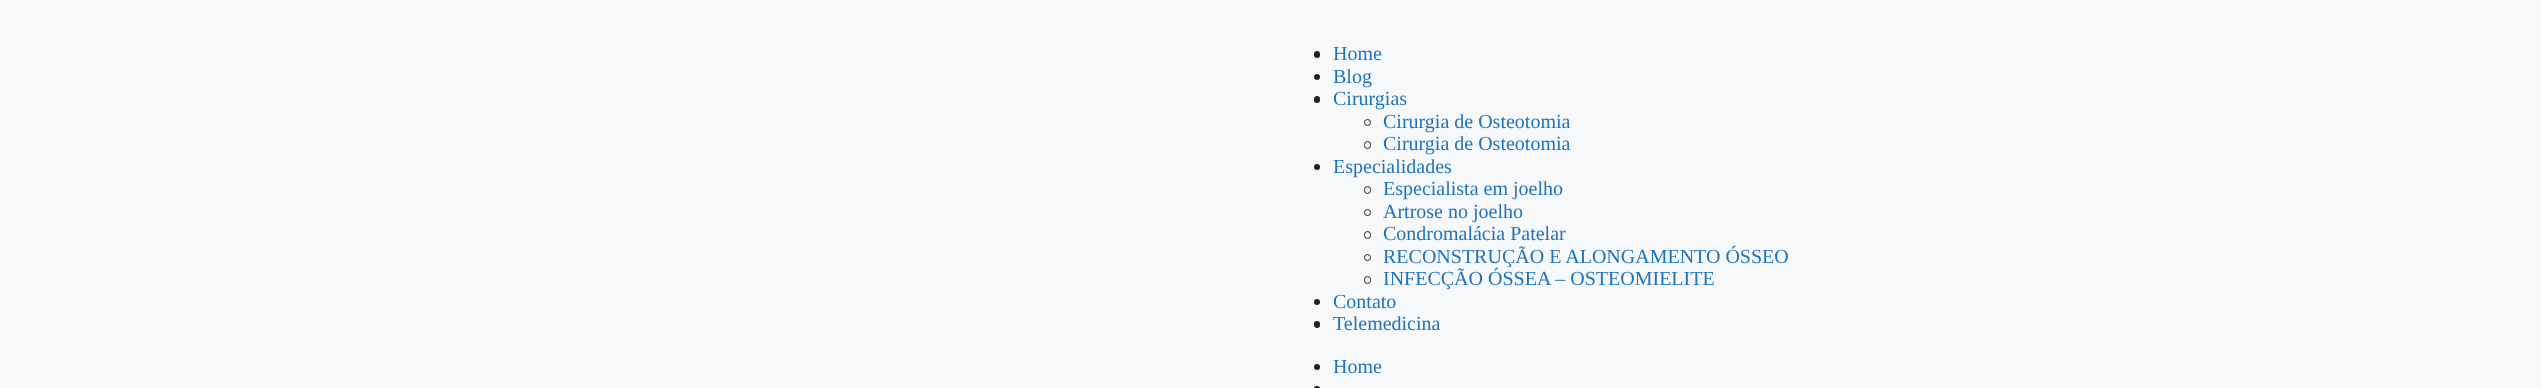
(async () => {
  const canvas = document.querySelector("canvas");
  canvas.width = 2541;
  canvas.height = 388;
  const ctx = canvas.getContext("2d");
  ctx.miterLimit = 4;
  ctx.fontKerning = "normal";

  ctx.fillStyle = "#f7f8f9";
  ctx.fillRect(0, 0, 2541, 388);
  ctx.fillStyle = "#222222";
  ctx.beginPath();
  ctx.roundRect(1314, 51, 6, 7, 3);
  ctx.fill();
  ctx.beginPath();
  ctx.arc(1317, 77, 3, 0, Math.PI * 2);
  ctx.fill();
  ctx.beginPath();
  ctx.roundRect(1314, 96, 6, 7, 3);
  ctx.fill();
  ctx.beginPath();
  ctx.arc(1367.5, 122.5, 3, 0, Math.PI * 2);
  ctx.strokeStyle = "#222222";
  ctx.stroke();
  ctx.beginPath();
  ctx.roundRect(1364.5, 141.5, 6, 7, 3);
  ctx.stroke();
  ctx.beginPath();
  ctx.arc(1317, 167, 3, 0, Math.PI * 2);
  ctx.fill();
  ctx.beginPath();
  ctx.roundRect(1364.5, 186.5, 6, 7, 3);
  ctx.stroke();
  ctx.beginPath();
  ctx.arc(1367.5, 212.5, 3, 0, Math.PI * 2);
  ctx.stroke();
  ctx.beginPath();
  ctx.roundRect(1364.5, 231.5, 6, 7, 3);
  ctx.stroke();
  ctx.beginPath();
  ctx.arc(1367.5, 257.5, 3, 0, Math.PI * 2);
  ctx.stroke();
  ctx.beginPath();
  ctx.roundRect(1364.5, 276.5, 6, 7, 3);
  ctx.stroke();
  ctx.beginPath();
  ctx.arc(1317, 302, 3, 0, Math.PI * 2);
  ctx.fill();
  ctx.beginPath();
  ctx.roundRect(1314, 321, 6, 7, 3);
  ctx.fill();
  ctx.beginPath();
  ctx.arc(1317, 367, 3, 0, Math.PI * 2);
  ctx.fill();
  ctx.beginPath();
  ctx.roundRect(1314, 386, 6, 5, 3);
  ctx.fill();
  ctx.font = "20px Liberation Serif";
  ctx.fillStyle = "#1e73be";
  for (const [text, x, y] of [
    ["Home", 1333, 60],
    ["Blog", 1333, 83],
    ["Cirurgias", 1333, 105],
    ["Cirurgia de Osteotomia", 1383, 128],
    ["Cirurgia de Osteotomia", 1383, 150],
    ["Especialidades", 1333, 173],
    ["Especialista em joelho", 1383, 195],
    ["Artrose no joelho", 1383, 218],
    ["Condromalácia Patelar", 1383, 240],
    ["RECONSTRUÇÃO E ALONGAMENTO ÓSSEO", 1383, 263],
    ["INFECÇÃO ÓSSEA – OSTEOMIELITE", 1383, 285],
    ["Contato", 1333, 308],
    ["Telemedicina", 1333, 330],
    ["Home", 1333, 373],
  ]) {
    ctx.fillText(text, x, y);
  }
})();
